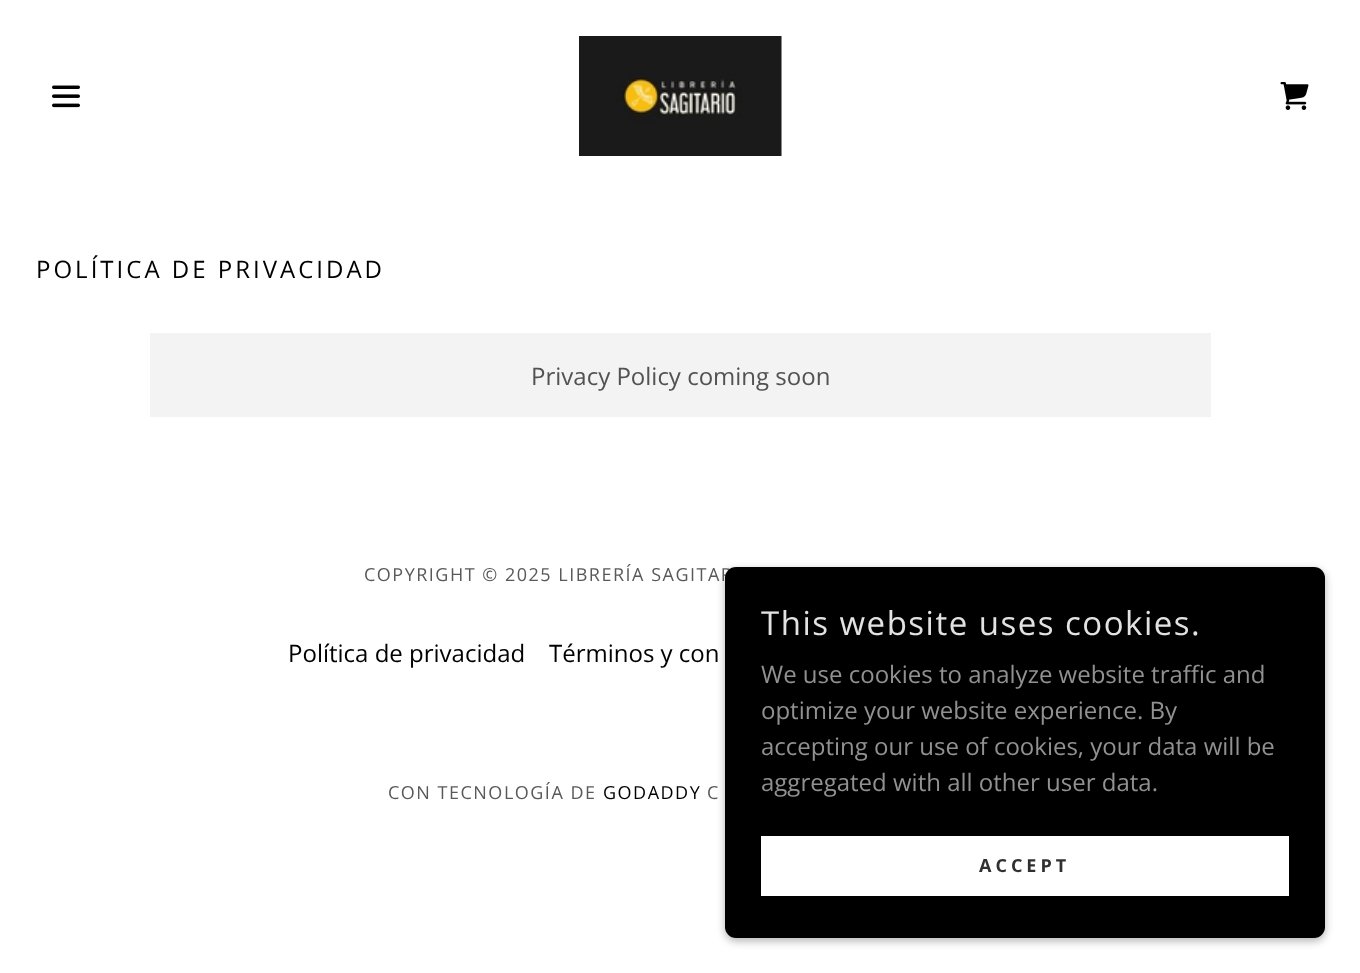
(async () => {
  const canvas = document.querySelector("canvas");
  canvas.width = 1360;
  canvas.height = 973;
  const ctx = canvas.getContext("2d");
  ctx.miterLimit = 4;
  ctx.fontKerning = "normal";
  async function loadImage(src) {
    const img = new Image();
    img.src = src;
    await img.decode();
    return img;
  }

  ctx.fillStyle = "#ffffff";
  ctx.fillRect(0, 0, 1360, 973);
  ctx.drawImage(await loadImage("img/1.png"), 52, 85, 28, 23);
  ctx.drawImage(await loadImage("img/2.png"), 579, 36, 203, 120);
  ctx.drawImage(await loadImage("img/3.png"), 1280, 82, 29, 28);
  ctx.fillStyle = "#f3f3f3";
  ctx.fillRect(150, 333, 1061, 84);
  ctx.fillStyle = "rgba(0, 0, 0, 0.3)";
  ctx.filter = "blur(4.5px)";
  ctx.beginPath();
  ctx.roundRect(725, 570, 600, 371, 11);
  ctx.fill();
  ctx.filter = "none";
  ctx.letterSpacing = "3px";
  ctx.font = "24px Open Sans";
  ctx.fillStyle = "#000000";
  ctx.fillText("POLÍTICA DE PRIVACIDAD", 36, 278);
  ctx.letterSpacing = "0px";
  ctx.fillStyle = "#525252";
  ctx.fillText("Privacy Policy coming soon", 531, 385);
  ctx.letterSpacing = "1.5px";
  ctx.font = "18px Open Sans";
  ctx.fillStyle = "#595959";
  ctx.fillText("COPYRIGHT © 2025 LIBRERÍA SAGITAR", 364, 581);
  ctx.letterSpacing = "0px";
  ctx.font = "24px Open Sans";
  ctx.fillStyle = "#000000";
  ctx.fillText("Política de privacidad", 288, 662);
  ctx.fillText("Términos y con", 549, 662);
  ctx.letterSpacing = "1.5px";
  ctx.font = "18px Open Sans";
  ctx.fillStyle = "#595959";
  ctx.fillText("CON TECNOLOGÍA DE", 388, 799);
  ctx.fillStyle = "#000000";
  ctx.fillText("GODADDY", 603, 799);
  ctx.fillStyle = "#595959";
  ctx.fillText("C", 707, 799);
  ctx.fillStyle = "#000000";
  ctx.beginPath();
  ctx.roundRect(725, 567, 600, 371, 11);
  ctx.fill();
  ctx.font = "33px Open Sans";
  ctx.fillStyle = "#e2e2e2";
  ctx.fillText("This website uses cookies.", 761, 635);
  ctx.letterSpacing = "0px";
  ctx.font = "24px Open Sans";
  ctx.fillStyle = "#919191";
  for (const [text, x, y] of [
    ["We use cookies to analyze website traffic and", 761, 683],
    ["optimize your website experience. By", 761, 719],
    ["accepting our use of cookies, your data will be", 761, 755],
    ["aggregated with all other user data.", 761, 791],
  ]) {
    ctx.fillText(text, x, y);
  }
  ctx.fillStyle = "#ffffff";
  ctx.fillRect(761, 836, 528, 60);
  ctx.letterSpacing = "4px";
  ctx.font = "bold 18px Open Sans";
  ctx.fillStyle = "#303030";
  ctx.fillText("ACCEPT", 979, 872);
})();
